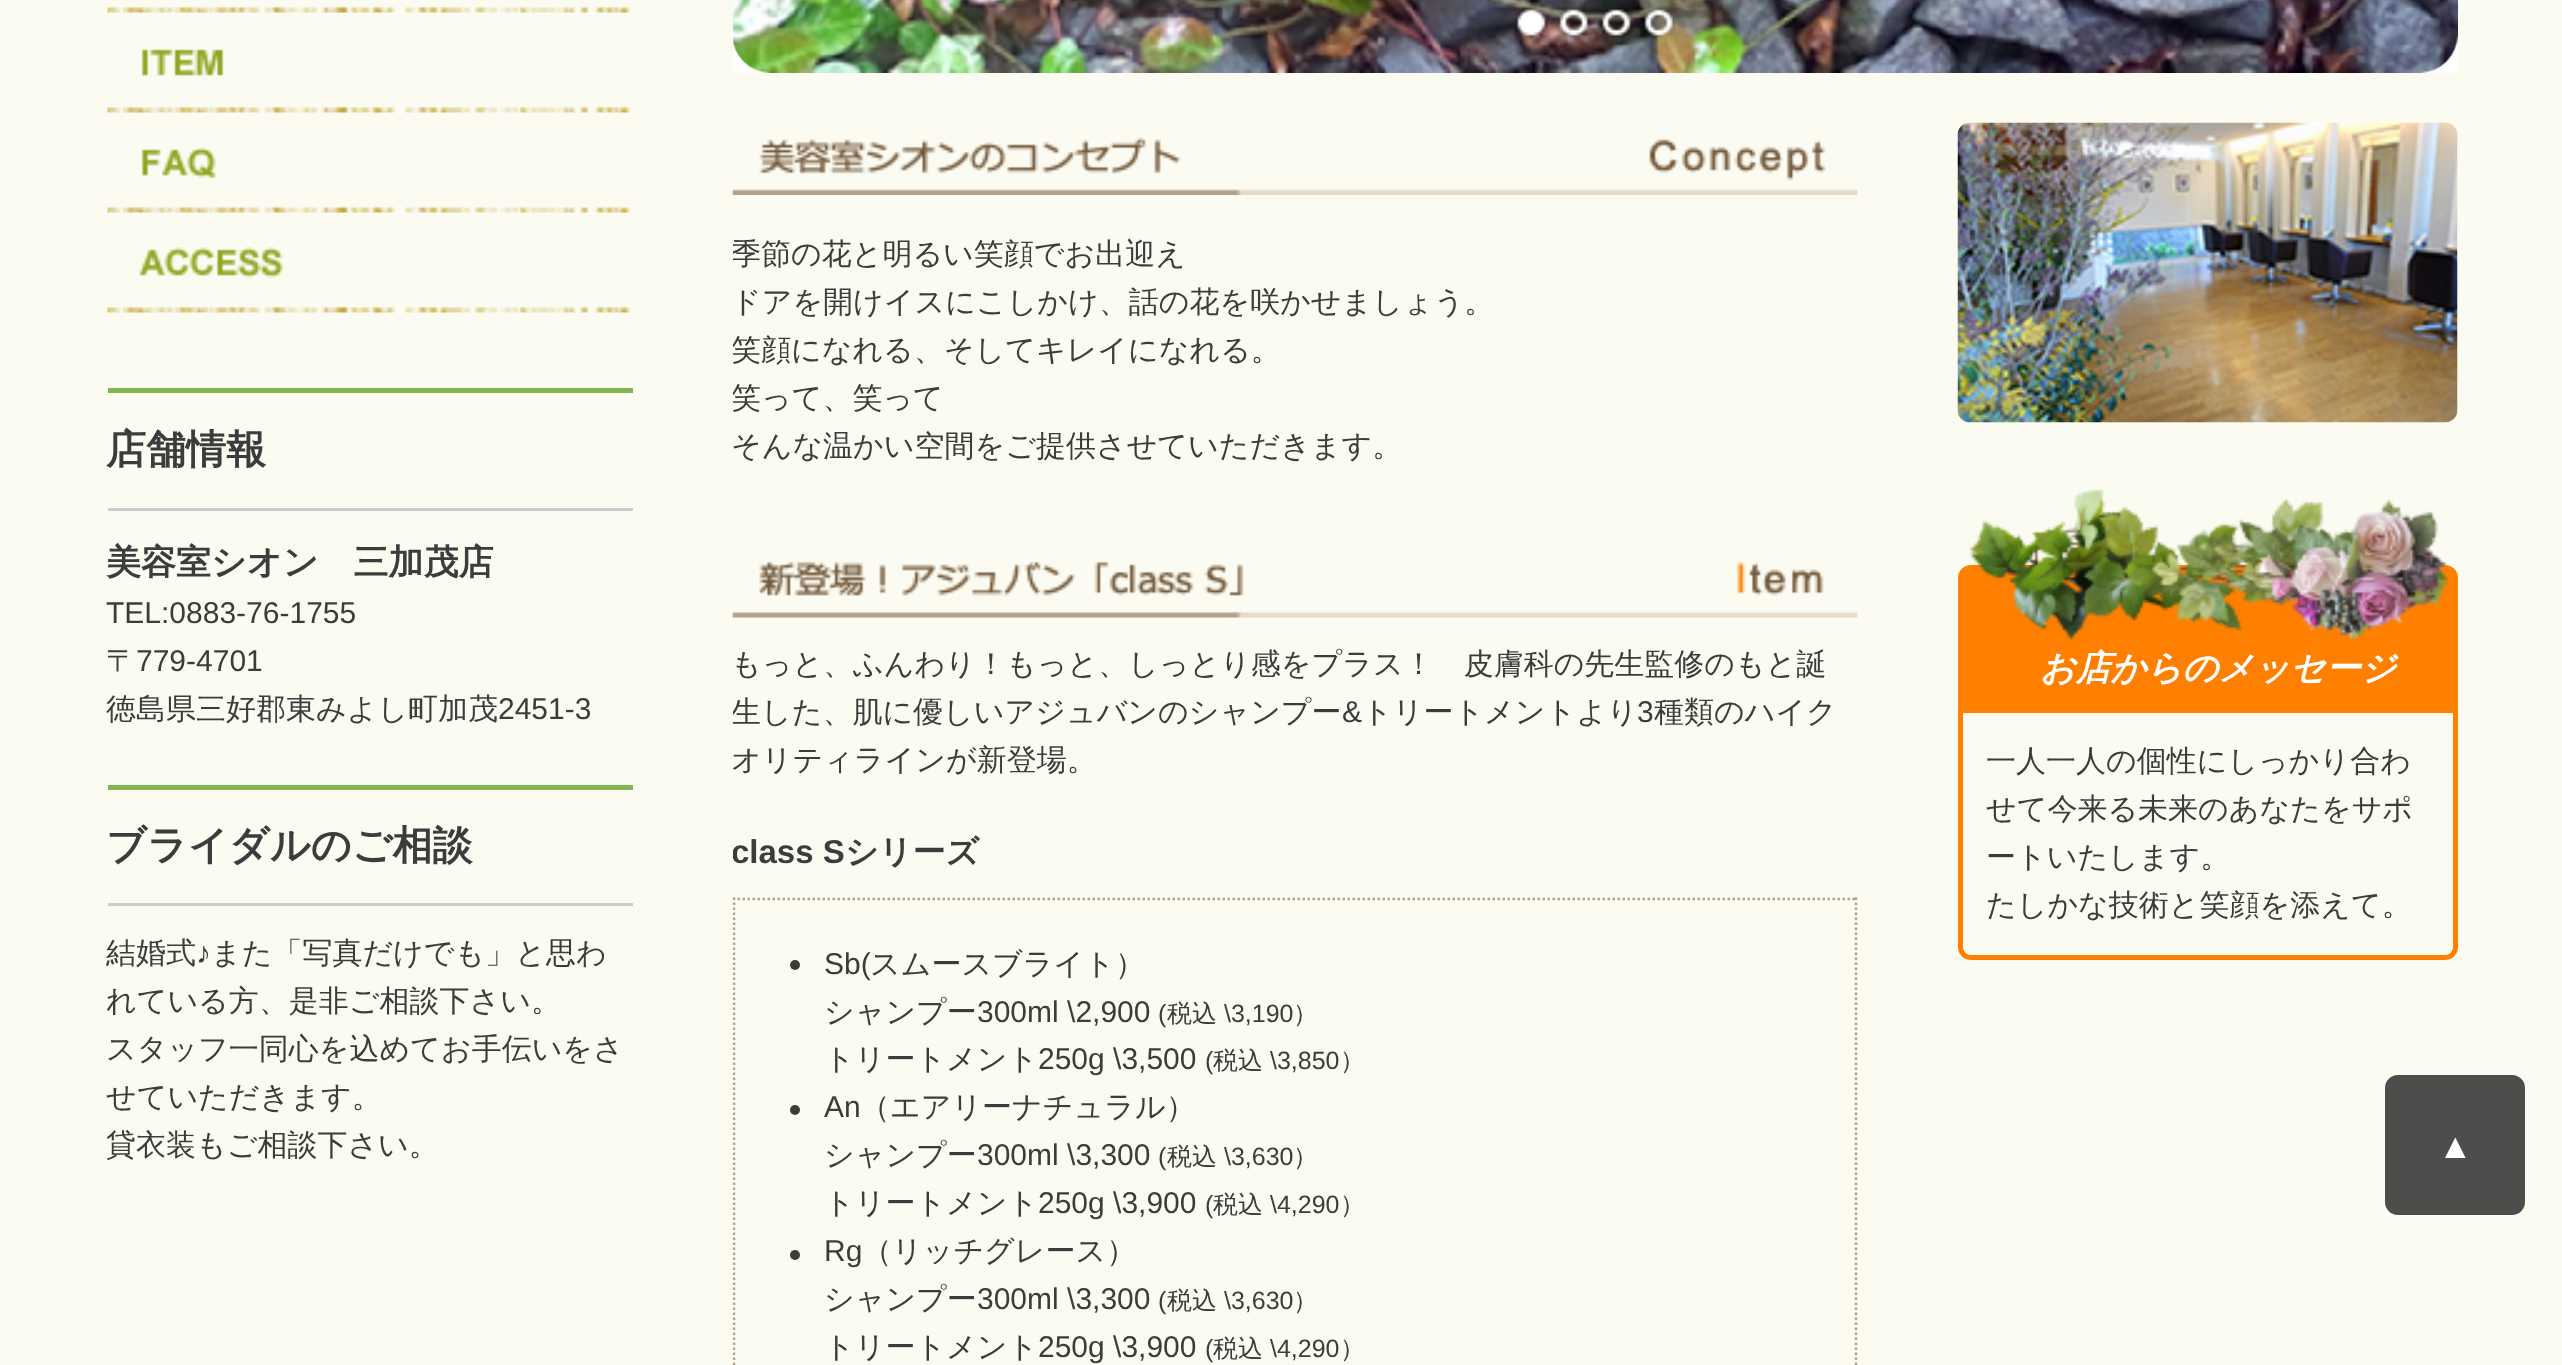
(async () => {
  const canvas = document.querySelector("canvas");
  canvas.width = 2562;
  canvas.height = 1365;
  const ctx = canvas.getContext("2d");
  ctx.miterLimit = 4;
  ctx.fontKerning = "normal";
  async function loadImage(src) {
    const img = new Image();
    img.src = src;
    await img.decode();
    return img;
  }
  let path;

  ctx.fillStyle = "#fbfbf1";
  ctx.fillRect(0, 0, 2562, 1365);
  ctx.drawImage(await loadImage("img/1.png"), 107, 6, 524, 7);
  ctx.drawImage(await loadImage("img/2.png"), 107, 49, 524, 64);
  ctx.drawImage(await loadImage("img/3.png"), 107, 147, 524, 66);
  ctx.drawImage(await loadImage("img/4.png"), 107, 247, 524, 66);
  for (const [x, y, w, h, color] of [
    [108, 388, 525, 5, "#80b654"],
    [108, 508, 525, 3, "#cccccc"],
    [108, 785, 525, 5, "#80b654"],
    [108, 903, 525, 3, "#cccccc"],
    [733, 35, 1725, 38, "#ffffff"],
  ]) {
    ctx.fillStyle = color;
    ctx.fillRect(x, y, w, h);
  }
  ctx.drawImage(await loadImage("img/5.png"), 733, 0, 1725, 73);
  ctx.drawImage(await loadImage("img/6.png"), 1515, 5, 35, 35);
  ctx.drawImage(await loadImage("img/7.png"), 1555, 6, 37, 34);
  ctx.drawImage(await loadImage("img/8.png"), 1599, 8, 34, 30);
  ctx.drawImage(await loadImage("img/9.png"), 1643, 5, 34, 35);
  ctx.drawImage(await loadImage("img/10.png"), 732, 137, 1126, 58);
  ctx.drawImage(await loadImage("img/11.png"), 732, 561, 1126, 57);
  ctx.save();
  ctx.beginPath();
  ctx.rect(733, 643, 1125, 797);
  ctx.clip();
  path = new Path2D("M732.5 899H1857.5");
  ctx.strokeStyle = "#b3a18b";
  ctx.lineWidth = 2.5;
  ctx.setLineDash([2.5, 2.5]);
  ctx.stroke(path);
  ctx.restore();
  path = new Path2D("M1856 897.5V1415");
  ctx.strokeStyle = "#b3a18b";
  ctx.lineWidth = 2.5;
  ctx.setLineDash([2.5, 2.5]);
  ctx.stroke(path);
  ctx.save();
  ctx.beginPath();
  ctx.rect(733, 643, 1125, 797);
  ctx.clip();
  path = new Path2D("M734 897.5V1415");
  ctx.stroke(path);
  ctx.restore();
  ctx.fillStyle = "#3d3c3c";
  ctx.beginPath();
  ctx.arc(795, 965, 5, 0, Math.PI * 2);
  ctx.fill();
  ctx.beginPath();
  ctx.arc(795, 1110, 5, 0, Math.PI * 2);
  ctx.fill();
  ctx.beginPath();
  ctx.arc(795, 1255, 5, 0, Math.PI * 2);
  ctx.fill();
  ctx.drawImage(await loadImage("img/12.png"), 1957, 122, 501, 301);
  ctx.fillStyle = "#ff7f00";
  ctx.beginPath();
  ctx.roundRect(1958, 565, 500, 143, [13, 13, 0, 0]);
  ctx.fill();
  ctx.drawImage(await loadImage("img/13.png"), 1969, 489, 481, 152);
  ctx.beginPath();
  ctx.roundRect(1960.5, 710.5, 495, 247, [0, 0, 10.5, 10.5]);
  ctx.strokeStyle = "#ff7f00";
  ctx.lineWidth = 5;
  ctx.setLineDash([]);
  ctx.stroke();
  ctx.fillStyle = "#4d4d4b";
  ctx.beginPath();
  ctx.roundRect(2385, 1075, 140, 140, 13);
  ctx.fill();
  ctx.font = "bold 40px WenQuanYi Zen Hei";
  ctx.fillStyle = "#3d3c3c";
  ctx.fillText("店舗情報", 106, 463);
  ctx.font = "bold 35px WenQuanYi Zen Hei";
  ctx.fillText("美容室シオン　三加茂店", 106, 574);
  ctx.font = "30px Liberation Sans";
  ctx.fillText("TEL:0883-76-1755", 106, 623);
  ctx.font = "500 30px WenQuanYi Zen Hei";
  ctx.fillText("〒", 106, 671);
  ctx.font = "30px Liberation Sans";
  ctx.fillText("779-4701", 136, 671);
  ctx.font = "500 30px WenQuanYi Zen Hei";
  ctx.fillText("徳島県三好郡東みよし町加茂", 106, 719);
  ctx.font = "30px Liberation Sans";
  ctx.fillText("2451-3", 498, 719);
  ctx.font = "bold 40px WenQuanYi Zen Hei";
  ctx.fillText("ブライダルのご相談", 106, 859);
  ctx.font = "500 30px WenQuanYi Zen Hei";
  ctx.fillText("結婚式", 106, 963);
  ctx.font = "30px Liberation Sans";
  ctx.fillText("♪", 196, 963);
  ctx.font = "500 30px WenQuanYi Zen Hei";
  for (const [text, x, y] of [
    ["また「写真だけでも」と思わ", 211, 963],
    ["れている方、是非ご相談下さい。", 106, 1011],
    ["スタッフ一同心を込めてお手伝いをさ", 106, 1059],
    ["せていただきます。", 106, 1107],
    ["貸衣装もご相談下さい。", 106, 1155],
  ]) {
    ctx.fillText(text, x, y);
  }
  ctx.save();
  ctx.beginPath();
  ctx.rect(733, 233, 1125, 265);
  ctx.clip();
  ctx.fillText("季節の花と明るい笑顔でお出迎え", 731, 264);
  ctx.restore();
  ctx.fillText("ドアを開けイスにこしかけ、話の花を咲かせましょう。", 731, 312);
  ctx.save();
  ctx.beginPath();
  ctx.rect(733, 233, 1125, 265);
  ctx.clip();
  ctx.fillText("笑顔になれる、そしてキレイになれる。", 731, 360);
  ctx.fillText("笑って、笑って", 731, 408);
  ctx.restore();
  ctx.fillText("そんな温かい空間をご提供させていただきます。", 731, 456);
  ctx.fillText("もっと、ふんわり！もっと、しっとり感をプラス！　皮膚科の先生監修のもと誕", 731, 674);
  ctx.save();
  ctx.beginPath();
  ctx.rect(733, 643, 1125, 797);
  ctx.clip();
  ctx.fillText("生した、肌に優しいアジュバンのシャンプー", 731, 722);
  ctx.restore();
  ctx.font = "30px Liberation Sans";
  ctx.fillText("&", 1342, 722);
  ctx.font = "500 30px WenQuanYi Zen Hei";
  ctx.fillText("トリートメントより", 1362, 722);
  ctx.font = "30px Liberation Sans";
  ctx.fillText("3", 1637, 722);
  ctx.font = "500 30px WenQuanYi Zen Hei";
  ctx.fillText("種類のハイク", 1654, 722);
  ctx.fillText("オリティラインが新登場。", 731, 770);
  ctx.save();
  ctx.beginPath();
  ctx.rect(733, 643, 1125, 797);
  ctx.clip();
  ctx.font = "bold 33px Liberation Sans";
  ctx.fillText("class S", 731, 863);
  ctx.restore();
  ctx.font = "bold 33px WenQuanYi Zen Hei";
  ctx.fillText("シリーズ", 845, 863);
  ctx.font = "30px Liberation Sans";
  ctx.fillText("Sb(", 824, 974);
  ctx.font = "500 30px WenQuanYi Zen Hei";
  ctx.fillText("スムースブライト）", 870, 974);
  ctx.fillText("シャンプー", 824, 1022);
  ctx.font = "30px Liberation Sans";
  ctx.fillText("300ml \\2,900", 977, 1022);
  ctx.font = "25px Liberation Sans";
  ctx.fillText("(", 1158, 1022);
  ctx.font = "500 25px WenQuanYi Zen Hei";
  ctx.fillText("税込", 1167, 1022);
  ctx.font = "25px Liberation Sans";
  ctx.fillText("\\3,190", 1224, 1022);
  ctx.font = "500 25px WenQuanYi Zen Hei";
  ctx.fillText("）", 1293, 1022);
  ctx.font = "500 30px WenQuanYi Zen Hei";
  ctx.fillText("トリートメント", 824, 1069);
  ctx.font = "30px Liberation Sans";
  ctx.fillText("250g \\3,500", 1038, 1069);
  ctx.font = "25px Liberation Sans";
  ctx.fillText("(", 1205, 1069);
  ctx.font = "500 25px WenQuanYi Zen Hei";
  ctx.fillText("税込", 1213, 1069);
  ctx.font = "25px Liberation Sans";
  ctx.fillText("\\3,850", 1270, 1069);
  ctx.font = "500 25px WenQuanYi Zen Hei";
  ctx.fillText("）", 1340, 1069);
  ctx.font = "30px Liberation Sans";
  ctx.fillText("An", 824, 1117);
  ctx.font = "500 30px WenQuanYi Zen Hei";
  ctx.fillText("（エアリーナチュラル）", 860, 1117);
  ctx.fillText("シャンプー", 824, 1165);
  ctx.font = "30px Liberation Sans";
  ctx.fillText("300ml \\3,300", 977, 1165);
  ctx.font = "25px Liberation Sans";
  ctx.fillText("(", 1158, 1165);
  ctx.font = "500 25px WenQuanYi Zen Hei";
  ctx.fillText("税込", 1167, 1165);
  ctx.font = "25px Liberation Sans";
  ctx.fillText("\\3,630", 1224, 1165);
  ctx.font = "500 25px WenQuanYi Zen Hei";
  ctx.fillText("）", 1293, 1165);
  ctx.font = "500 30px WenQuanYi Zen Hei";
  ctx.fillText("トリートメント", 824, 1213);
  ctx.font = "30px Liberation Sans";
  ctx.fillText("250g \\3,900", 1038, 1213);
  ctx.font = "25px Liberation Sans";
  ctx.fillText("(", 1205, 1213);
  ctx.font = "500 25px WenQuanYi Zen Hei";
  ctx.fillText("税込", 1213, 1213);
  ctx.font = "25px Liberation Sans";
  ctx.fillText("\\4,290", 1270, 1213);
  ctx.font = "500 25px WenQuanYi Zen Hei";
  ctx.fillText("）", 1340, 1213);
  ctx.font = "30px Liberation Sans";
  ctx.fillText("Rg", 824, 1261);
  ctx.font = "500 30px WenQuanYi Zen Hei";
  ctx.fillText("（リッチグレース）", 862, 1261);
  ctx.fillText("シャンプー", 824, 1309);
  ctx.font = "30px Liberation Sans";
  ctx.fillText("300ml \\3,300", 977, 1309);
  ctx.font = "25px Liberation Sans";
  ctx.fillText("(", 1158, 1309);
  ctx.font = "500 25px WenQuanYi Zen Hei";
  ctx.fillText("税込", 1167, 1309);
  ctx.font = "25px Liberation Sans";
  ctx.fillText("\\3,630", 1224, 1309);
  ctx.font = "500 25px WenQuanYi Zen Hei";
  ctx.fillText("）", 1293, 1309);
  ctx.font = "500 30px WenQuanYi Zen Hei";
  ctx.fillText("トリートメント", 824, 1357);
  ctx.font = "30px Liberation Sans";
  ctx.fillText("250g \\3,900", 1038, 1357);
  ctx.font = "25px Liberation Sans";
  ctx.fillText("(", 1205, 1357);
  ctx.font = "500 25px WenQuanYi Zen Hei";
  ctx.fillText("税込", 1213, 1357);
  ctx.font = "25px Liberation Sans";
  ctx.fillText("\\4,290", 1270, 1357);
  ctx.font = "500 25px WenQuanYi Zen Hei";
  ctx.fillText("）", 1340, 1357);
  ctx.font = "italic bold 35px WenQuanYi Zen Hei";
  ctx.fillStyle = "#ffffff";
  ctx.fillText("お店からのメッセージ", 2040, 680);
  ctx.font = "500 30px WenQuanYi Zen Hei";
  ctx.fillStyle = "#3d3c3c";
  for (const [text, x, y] of [
    ["一人一人の個性にしっかり合わ", 1986, 771],
    ["せて今来る未来のあなたをサポ", 1986, 819],
    ["ートいたします。", 1986, 867],
    ["たしかな技術と笑顔を添えて。", 1986, 915],
  ]) {
    ctx.fillText(text, x, y);
  }
  ctx.font = "35px Liberation Sans";
  ctx.fillStyle = "#ffffff";
  ctx.fillText("▲", 2438, 1158);
})();
